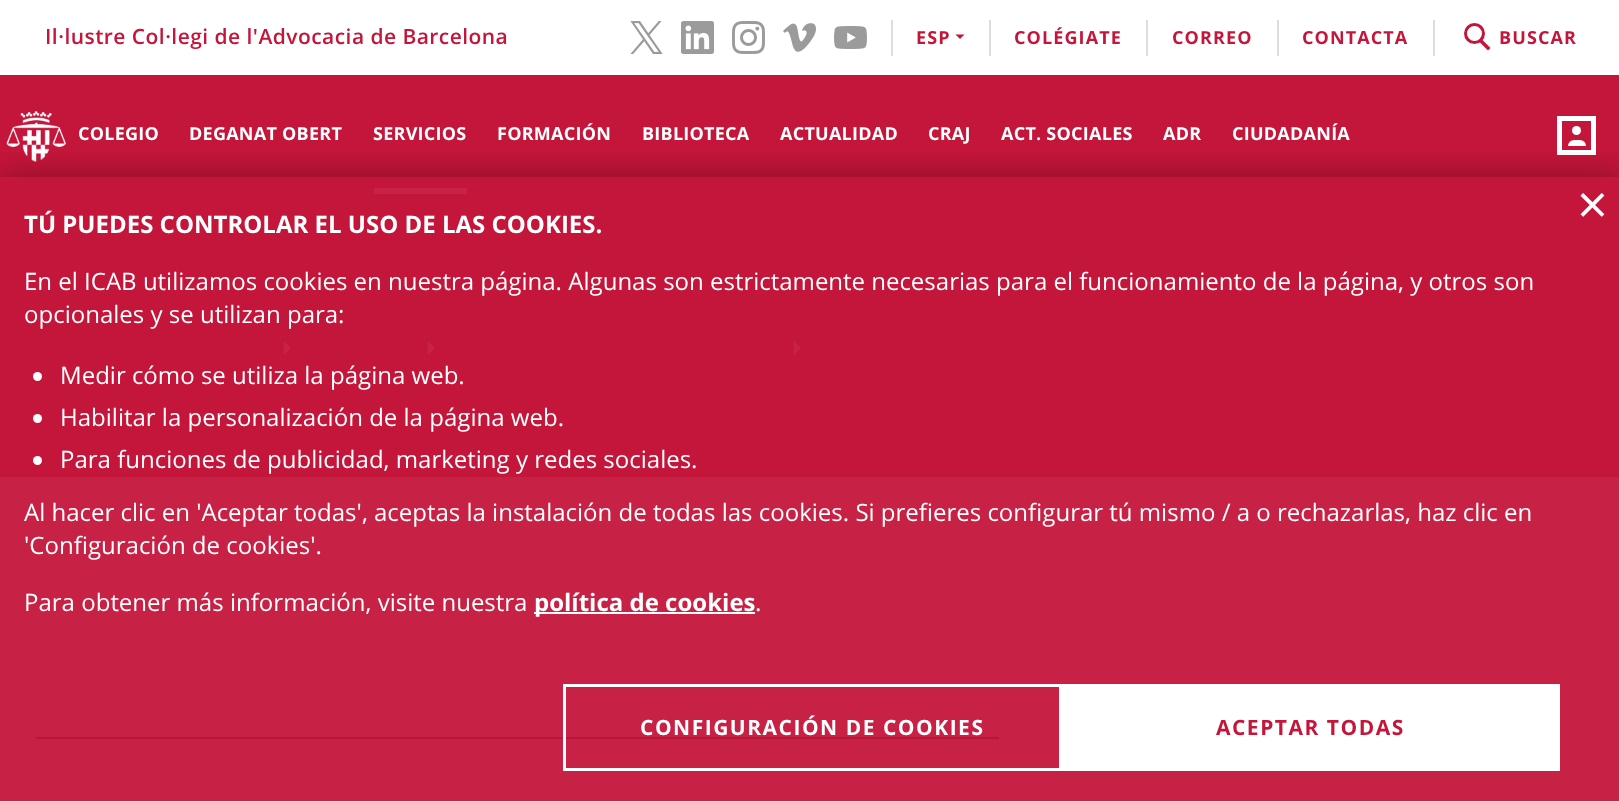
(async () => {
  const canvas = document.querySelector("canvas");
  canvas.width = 1619;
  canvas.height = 801;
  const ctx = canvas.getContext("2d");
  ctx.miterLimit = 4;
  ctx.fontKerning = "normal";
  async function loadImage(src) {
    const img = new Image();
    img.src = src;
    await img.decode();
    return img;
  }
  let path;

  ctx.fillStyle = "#c4153a";
  ctx.fillRect(0, 0, 1619, 801);
  ctx.fillStyle = "#ffffff";
  ctx.fillRect(0, 0, 1619, 75);
  ctx.fillStyle = "#dddddd";
  ctx.fillRect(891, 20, 2, 36);
  ctx.drawImage(await loadImage("img/1.png"), 630, 21, 33, 33);
  ctx.drawImage(await loadImage("img/2.png"), 681, 21, 33, 33);
  ctx.drawImage(await loadImage("img/3.png"), 732, 21, 33, 33);
  ctx.drawImage(await loadImage("img/4.png"), 783, 23, 33, 29);
  ctx.drawImage(await loadImage("img/5.png"), 834, 26, 33, 23);
  ctx.fillRect(989, 20, 2, 36);
  ctx.fillStyle = "#c4153a";
  path = new Path2D("M955.5 34.5H964.5L960 39Z");
  ctx.fill(path);
  for (const [x, y, w, h, color] of [
    [1146, 20, 2, 36, "#dddddd"],
    [1277, 20, 2, 36, "#dddddd"],
    [1433, 20, 2, 36, "#dddddd"],
  ]) {
    ctx.fillStyle = color;
    ctx.fillRect(x, y, w, h);
  }
  ctx.beginPath();
  ctx.arc(1474.5, 33.5, 9, 0, Math.PI * 2);
  ctx.strokeStyle = "#c4153a";
  ctx.lineWidth = 3;
  ctx.stroke();
  ctx.fillStyle = "#c4153a";
  path = new Path2D("M1482 39.5L1490.5 48L1488 50.5L1479.5 42Z");
  ctx.fill(path);
  ctx.drawImage(await loadImage("img/6.png"), 6, 111, 60, 51);
  ctx.fillStyle = "#c82346";
  ctx.fillRect(374, 188, 93, 6);
  ctx.strokeStyle = "#ffffff";
  ctx.lineWidth = 5;
  ctx.strokeRect(1559.5, 118.5, 34, 34);
  ctx.fillStyle = "#ffffff";
  ctx.beginPath();
  ctx.arc(1576.5, 130.5, 4.5, 0, Math.PI * 2);
  ctx.fill();
  ctx.beginPath();
  ctx.roundRect(1568, 140, 18, 6, [6, 6, 0, 0]);
  ctx.fill();
  ctx.fillStyle = "#c82346";
  path = new Path2D("M283.5 355.5V340.5L291 348Z");
  ctx.fill(path);
  path = new Path2D("M427.5 355.5V340.5L435 348Z");
  ctx.fill(path);
  path = new Path2D("M793.5 355.5V340.5L801 348Z");
  ctx.fill(path);
  ctx.fillStyle = "#c72245";
  ctx.fillRect(0, 477, 1619, 324);
  ctx.fillStyle = "#ba1639";
  ctx.fillRect(36, 737, 963, 2);
  ctx.save();
  ctx.beginPath();
  ctx.rect(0, 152, 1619, 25);
  ctx.clip();
  ctx.fillStyle = "rgba(0, 0, 0, 0.3)";
  ctx.filter = "blur(16px)";
  ctx.beginPath();
  ctx.rect(0, 176, 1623, 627);
  ctx.fill();
  ctx.filter = "none";
  ctx.restore();
  ctx.fillStyle = "#ffffff";
  ctx.beginPath();
  ctx.arc(37.5, 376.5, 4.5, 0, Math.PI * 2);
  ctx.fill();
  ctx.beginPath();
  ctx.arc(37.5, 418.5, 4.5, 0, Math.PI * 2);
  ctx.fill();
  ctx.beginPath();
  ctx.arc(37.5, 460.5, 4.5, 0, Math.PI * 2);
  ctx.fill();
  ctx.fillRect(534, 612, 221, 2);
  ctx.lineWidth = 3;
  ctx.strokeRect(564.5, 685.5, 496, 84);
  ctx.fillRect(1062, 684, 498, 87);
  ctx.letterSpacing = "0.45px";
  ctx.font = "600 21px Open Sans";
  ctx.fillStyle = "#c4153a";
  ctx.fillText("Il·lustre Col·legi de l'Advocacia de Barcelona", 45, 44);
  ctx.letterSpacing = "1.1px";
  ctx.font = "bold 18px Open Sans";
  for (const [text, x, y] of [
    ["ESP", 916, 44],
    ["COLÉGIATE", 1014, 44],
    ["CORREO", 1172, 44],
    ["CONTACTA", 1302, 44],
    ["BUSCAR", 1499, 44],
  ]) {
    ctx.fillText(text, x, y);
  }
  ctx.letterSpacing = "0.25px";
  ctx.fillStyle = "#ffffff";
  for (const [text, x, y] of [
    ["COLEGIO", 78, 140],
    ["DEGANAT OBERT", 189, 140],
    ["SERVICIOS", 373, 140],
    ["FORMACIÓN", 497, 140],
    ["BIBLIOTECA", 642, 140],
    ["ACTUALIDAD", 780, 140],
    ["CRAJ", 928, 140],
    ["ACT. SOCIALES", 1001, 140],
    ["ADR", 1163, 140],
    ["CIUDADANÍA", 1232, 140],
  ]) {
    ctx.fillText(text, x, y);
  }
  ctx.letterSpacing = "0px";
  ctx.font = "54px Open Sans";
  ctx.fillText("×", 1577, 224);
  ctx.font = "bold 24px Open Sans";
  ctx.fillText("TÚ PUEDES CONTROLAR EL USO DE LAS COOKIES.", 24, 233);
  ctx.font = "24px Open Sans";
  for (const [text, x, y] of [
    ["En el ICAB utilizamos cookies en nuestra página. Algunas son estrictamente necesarias para el funcionamiento de la página, y otros son", 24, 290],
    ["opcionales y se utilizan para:", 24, 323],
    ["Medir cómo se utiliza la página web.", 60, 384],
    ["Habilitar la personalización de la página web.", 60, 426],
    ["Para funciones de publicidad, marketing y redes sociales.", 60, 468],
    ["Al hacer clic en 'Aceptar todas', aceptas la instalación de todas las cookies. Si prefieres configurar tú mismo / a o rechazarlas, haz clic en", 24, 521],
    ["'Configuración de cookies'.", 24, 554],
    ["Para obtener más información, visite nuestra", 24, 611],
  ]) {
    ctx.fillText(text, x, y);
  }
  ctx.font = "bold 24px Open Sans";
  ctx.fillText("política de cookies", 534, 611);
  ctx.font = "24px Open Sans";
  ctx.fillText(".", 755, 611);
  ctx.letterSpacing = "1.5px";
  ctx.font = "bold 21px Open Sans";
  ctx.fillText("CONFIGURACIÓN DE COOKIES", 640, 735);
  ctx.fillStyle = "#c4153a";
  ctx.fillText("ACEPTAR TODAS", 1216, 735);
})();
